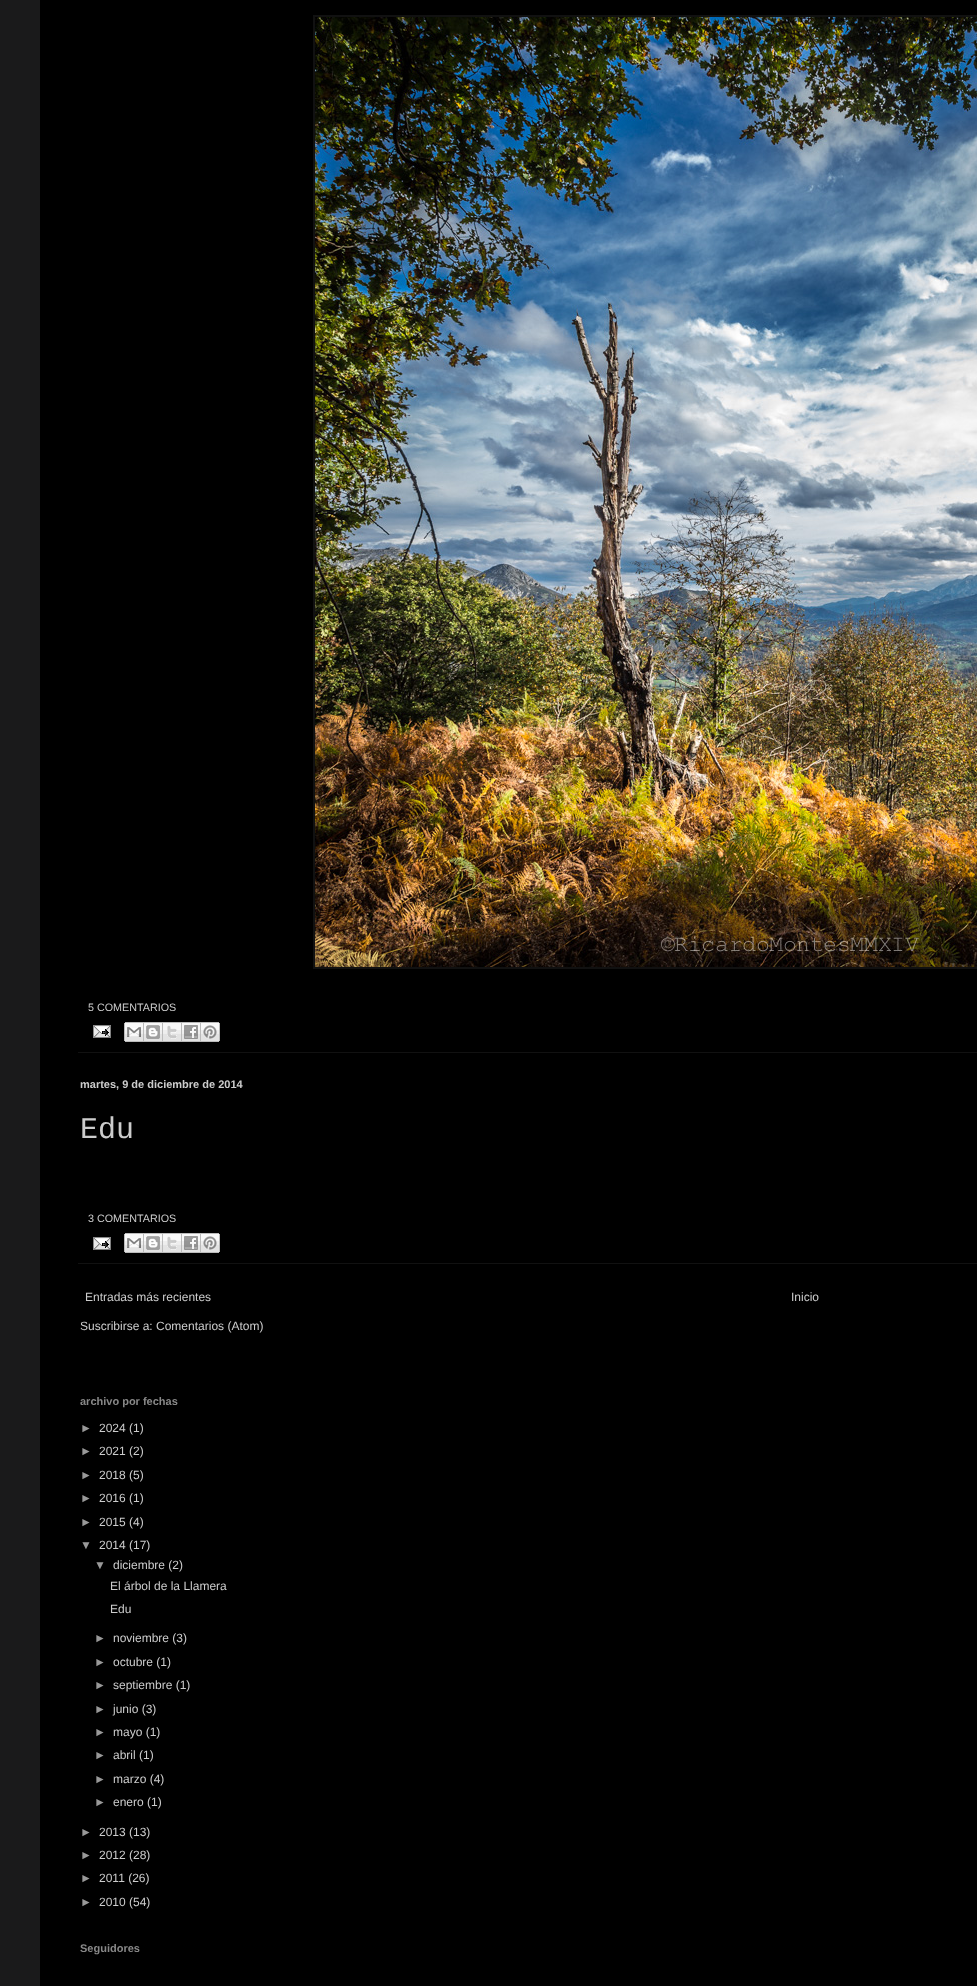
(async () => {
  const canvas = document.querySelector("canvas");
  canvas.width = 977;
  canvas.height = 1986;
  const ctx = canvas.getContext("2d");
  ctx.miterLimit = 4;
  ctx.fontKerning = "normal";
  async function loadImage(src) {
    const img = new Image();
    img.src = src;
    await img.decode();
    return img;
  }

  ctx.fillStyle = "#1a1a1b";
  ctx.fillRect(0, 0, 977, 1986);
  ctx.fillStyle = "#000000";
  ctx.fillRect(40, 0, 937, 1986);
  ctx.fillStyle = "#111111";
  ctx.fillRect(313, 15, 664, 954);
  ctx.drawImage(await loadImage("img/1.png"), 315, 17, 662, 950);
  ctx.fillRect(78, 1052, 899, 1);
  ctx.drawImage(await loadImage("img/2.png"), 93, 1025, 18, 13);
  ctx.drawImage(await loadImage("img/3.png"), 124, 1022, 20, 20);
  ctx.drawImage(await loadImage("img/4.png"), 144, 1022, 19, 20);
  ctx.drawImage(await loadImage("img/5.png"), 163, 1022, 19, 20);
  ctx.drawImage(await loadImage("img/6.png"), 182, 1022, 19, 20);
  ctx.drawImage(await loadImage("img/7.png"), 201, 1022, 19, 20);
  ctx.fillRect(78, 1263, 899, 1);
  ctx.drawImage(await loadImage("img/2.png"), 93, 1237, 18, 13);
  ctx.drawImage(await loadImage("img/3.png"), 124, 1233, 20, 20);
  ctx.drawImage(await loadImage("img/4.png"), 144, 1233, 19, 20);
  ctx.drawImage(await loadImage("img/5.png"), 163, 1233, 19, 20);
  ctx.drawImage(await loadImage("img/6.png"), 182, 1233, 19, 20);
  ctx.drawImage(await loadImage("img/7.png"), 201, 1233, 19, 20);
  ctx.font = "10.75px Liberation Sans";
  ctx.fillStyle = "#cccccc";
  ctx.fillText("5 COMENTARIOS", 88, 1011);
  ctx.font = "bold 11px Liberation Sans";
  ctx.fillText("martes, 9 de diciembre de 2014", 80, 1088);
  ctx.font = "30px Liberation Mono";
  ctx.fillText("Edu", 80, 1138);
  ctx.font = "10.75px Liberation Sans";
  ctx.fillText("3 COMENTARIOS", 88, 1222);
  ctx.font = "12px Liberation Sans";
  for (const [text, x, y] of [
    ["Entradas más recientes", 85, 1301],
    ["Inicio", 791, 1301],
    ["Suscribirse a: Comentarios (Atom)", 80, 1330],
  ]) {
    ctx.fillText(text, x, y);
  }
  ctx.font = "bold 11px Liberation Sans";
  ctx.fillStyle = "#888888";
  ctx.fillText("archivo por fechas", 80, 1405);
  ctx.font = "12px Liberation Sans";
  ctx.fillStyle = "#999999";
  ctx.fillText("►", 80, 1432);
  ctx.fillStyle = "#cccccc";
  ctx.fillText("2024 (1)", 99, 1432);
  ctx.fillStyle = "#999999";
  ctx.fillText("►", 80, 1455);
  ctx.fillStyle = "#cccccc";
  ctx.fillText("2021 (2)", 99, 1455);
  ctx.fillStyle = "#999999";
  ctx.fillText("►", 80, 1479);
  ctx.fillStyle = "#cccccc";
  ctx.fillText("2018 (5)", 99, 1479);
  ctx.fillStyle = "#999999";
  ctx.fillText("►", 80, 1502);
  ctx.fillStyle = "#cccccc";
  ctx.fillText("2016 (1)", 99, 1502);
  ctx.fillStyle = "#999999";
  ctx.fillText("►", 80, 1526);
  ctx.fillStyle = "#cccccc";
  ctx.fillText("2015 (4)", 99, 1526);
  ctx.fillStyle = "#999999";
  ctx.fillText("▼", 80, 1549);
  ctx.fillStyle = "#cccccc";
  ctx.fillText("2014 (17)", 99, 1549);
  ctx.fillStyle = "#999999";
  ctx.fillText("▼", 94, 1569);
  ctx.fillStyle = "#cccccc";
  for (const [text, x, y] of [
    ["diciembre (2)", 113, 1569],
    ["El árbol de la Llamera", 110, 1590],
    ["Edu", 110, 1613],
  ]) {
    ctx.fillText(text, x, y);
  }
  ctx.fillStyle = "#999999";
  ctx.fillText("►", 94, 1642);
  ctx.fillStyle = "#cccccc";
  ctx.fillText("noviembre (3)", 113, 1642);
  ctx.fillStyle = "#999999";
  ctx.fillText("►", 94, 1666);
  ctx.fillStyle = "#cccccc";
  ctx.fillText("octubre (1)", 113, 1666);
  ctx.fillStyle = "#999999";
  ctx.fillText("►", 94, 1689);
  ctx.fillStyle = "#cccccc";
  ctx.fillText("septiembre (1)", 113, 1689);
  ctx.fillStyle = "#999999";
  ctx.fillText("►", 94, 1713);
  ctx.fillStyle = "#cccccc";
  ctx.fillText("junio (3)", 113, 1713);
  ctx.fillStyle = "#999999";
  ctx.fillText("►", 94, 1736);
  ctx.fillStyle = "#cccccc";
  ctx.fillText("mayo (1)", 113, 1736);
  ctx.fillStyle = "#999999";
  ctx.fillText("►", 94, 1759);
  ctx.fillStyle = "#cccccc";
  ctx.fillText("abril (1)", 113, 1759);
  ctx.fillStyle = "#999999";
  ctx.fillText("►", 94, 1783);
  ctx.fillStyle = "#cccccc";
  ctx.fillText("marzo (4)", 113, 1783);
  ctx.fillStyle = "#999999";
  ctx.fillText("►", 94, 1806);
  ctx.fillStyle = "#cccccc";
  ctx.fillText("enero (1)", 113, 1806);
  ctx.fillStyle = "#999999";
  ctx.fillText("►", 80, 1836);
  ctx.fillStyle = "#cccccc";
  ctx.fillText("2013 (13)", 99, 1836);
  ctx.fillStyle = "#999999";
  ctx.fillText("►", 80, 1859);
  ctx.fillStyle = "#cccccc";
  ctx.fillText("2012 (28)", 99, 1859);
  ctx.fillStyle = "#999999";
  ctx.fillText("►", 80, 1882);
  ctx.fillStyle = "#cccccc";
  ctx.fillText("2011 (26)", 99, 1882);
  ctx.fillStyle = "#999999";
  ctx.fillText("►", 80, 1906);
  ctx.fillStyle = "#cccccc";
  ctx.fillText("2010 (54)", 99, 1906);
  ctx.font = "bold 11px Liberation Sans";
  ctx.fillStyle = "#888888";
  ctx.fillText("Seguidores", 80, 1952);
})();
